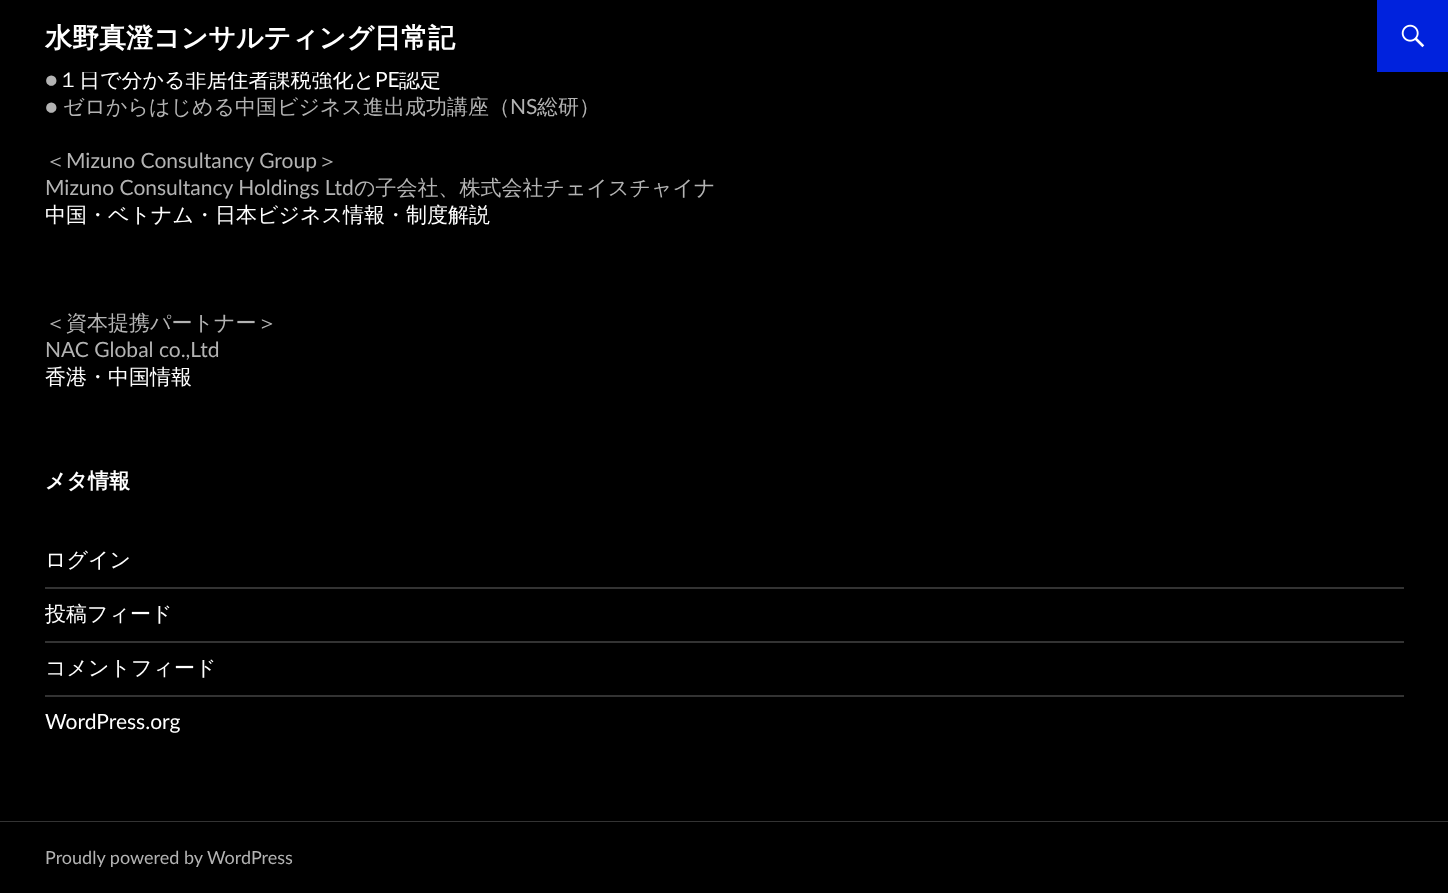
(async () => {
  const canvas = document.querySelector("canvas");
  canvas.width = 1448;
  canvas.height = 893;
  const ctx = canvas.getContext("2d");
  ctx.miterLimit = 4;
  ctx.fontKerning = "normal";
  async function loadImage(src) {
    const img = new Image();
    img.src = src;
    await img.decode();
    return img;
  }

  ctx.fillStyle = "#000000";
  ctx.fillRect(0, 0, 1448, 893);
  ctx.fillStyle = "#0022dd";
  ctx.fillRect(1377, 0, 71, 72);
  ctx.drawImage(await loadImage("img/1.png"), 1401, 24, 24, 24);
  for (const [x, y, w, h, color] of [
    [0, 821, 1448, 1, "#333333"],
    [45, 587, 1359, 2, "#333333"],
    [45, 641, 1359, 2, "#333333"],
    [45, 695, 1359, 2, "#333333"],
  ]) {
    ctx.fillStyle = color;
    ctx.fillRect(x, y, w, h);
  }
  ctx.font = "bold 27px WenQuanYi Zen Hei";
  ctx.fillStyle = "#ffffff";
  ctx.fillText("水野真澄コンサルティング日常記", 45, 47);
  ctx.font = "21px Lato";
  ctx.fillStyle = "#b3b3b3";
  ctx.fillText("●", 45, 87);
  ctx.font = "500 21px WenQuanYi Zen Hei";
  ctx.fillStyle = "#ffffff";
  ctx.fillText("１日で分かる非居住者課税強化と", 58, 87);
  ctx.font = "21px Lato";
  ctx.fillText("PE", 375, 87);
  ctx.font = "500 21px WenQuanYi Zen Hei";
  ctx.fillText("認定", 399, 87);
  ctx.fillStyle = "#000000";
  ctx.fillRect(81, 69, 351, 3);
  ctx.font = "21px Lato";
  ctx.fillStyle = "#b3b3b3";
  ctx.fillText("●", 45, 114);
  ctx.font = "500 21px WenQuanYi Zen Hei";
  ctx.fillText("ゼロからはじめる中国ビジネス進出成功講座（", 63, 114);
  ctx.font = "21px Lato";
  ctx.fillText("NS", 510, 114);
  ctx.font = "500 21px WenQuanYi Zen Hei";
  ctx.fillText("総研）", 537, 114);
  ctx.fillText("＜", 45, 168);
  ctx.font = "21px Lato";
  ctx.fillText("Mizuno Consultancy Group", 66, 168);
  ctx.font = "500 21px WenQuanYi Zen Hei";
  ctx.fillText("＞", 317, 168);
  ctx.font = "21px Lato";
  ctx.fillText("Mizuno Consultancy Holdings Ltd", 45, 195);
  ctx.font = "500 21px WenQuanYi Zen Hei";
  ctx.fillText("の子会社、株式会社チェイスチャイナ", 354, 195);
  ctx.fillStyle = "#ffffff";
  ctx.fillText("中国・ベトナム・日本ビジネス情報・制度解説", 45, 222);
  ctx.fillStyle = "#b3b3b3";
  ctx.fillText("＜資本提携パートナー＞", 45, 330);
  ctx.font = "21px Lato";
  ctx.fillText("NAC Global co.,Ltd", 45, 357);
  ctx.font = "500 21px WenQuanYi Zen Hei";
  ctx.fillStyle = "#ffffff";
  ctx.fillText("香港・中国情報", 45, 384);
  ctx.font = "bold 21px WenQuanYi Zen Hei";
  ctx.fillText("メタ情報", 45, 488);
  ctx.font = "500 21px WenQuanYi Zen Hei";
  for (const [text, x, y] of [
    ["ログイン", 45, 567],
    ["投稿フィード", 45, 621],
    ["コメントフィード", 45, 675],
  ]) {
    ctx.fillText(text, x, y);
  }
  ctx.font = "21px Lato";
  ctx.fillText("WordPress.org", 45, 729);
  ctx.font = "18px Lato";
  ctx.fillStyle = "#b3b3b3";
  ctx.fillText("Proudly powered by WordPress", 45, 864);
})();
